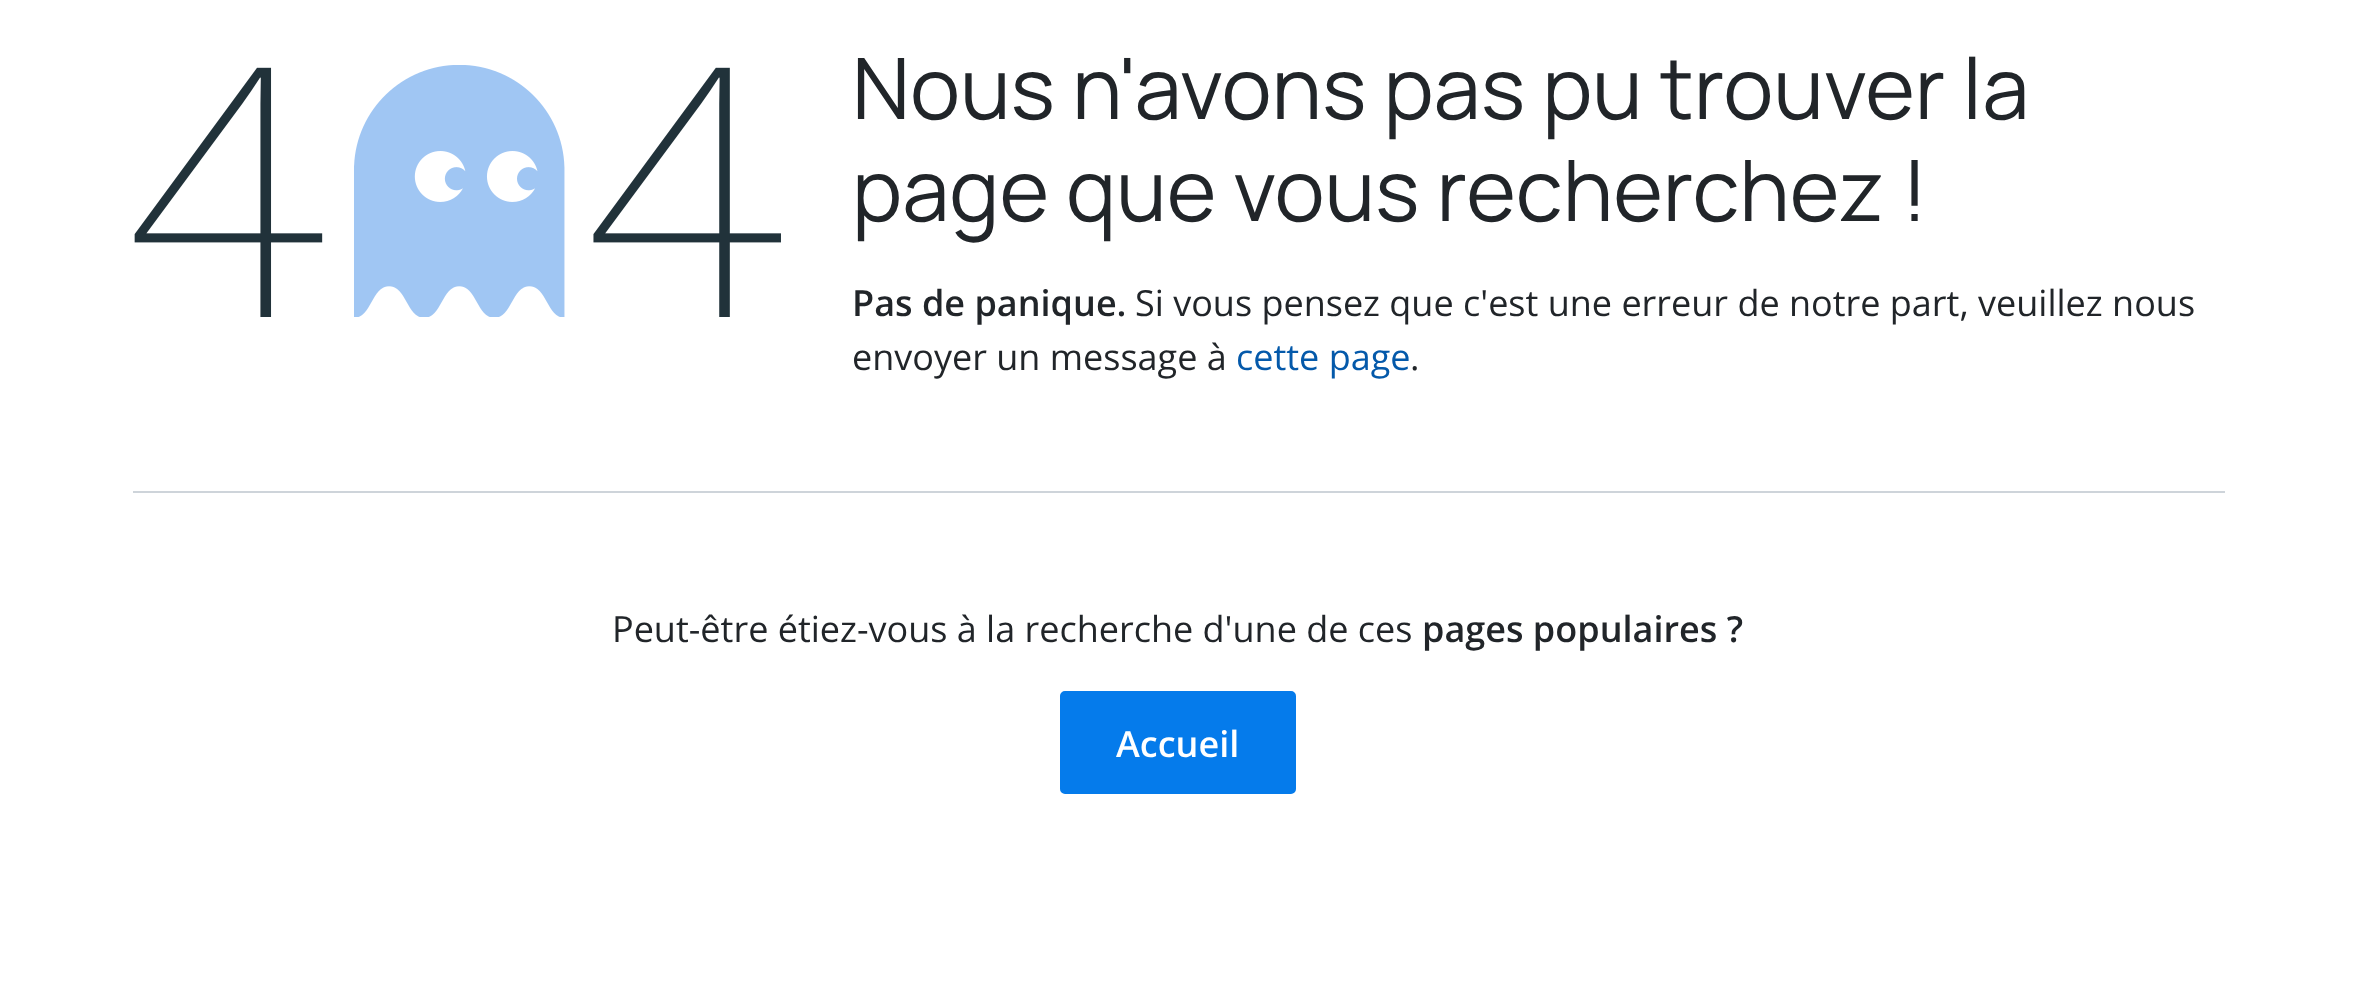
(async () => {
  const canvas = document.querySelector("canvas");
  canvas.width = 2354;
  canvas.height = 995;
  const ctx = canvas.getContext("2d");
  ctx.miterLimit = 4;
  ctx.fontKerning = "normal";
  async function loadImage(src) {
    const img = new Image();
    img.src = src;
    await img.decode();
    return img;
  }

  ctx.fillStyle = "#ffffff";
  ctx.fillRect(0, 0, 2354, 995);
  ctx.drawImage(await loadImage("img/1.png"), 134, 65, 647, 252);
  ctx.fillStyle = "#ced4da";
  ctx.fillRect(133, 491, 2092, 2);
  ctx.fillStyle = "#057beb";
  ctx.beginPath();
  ctx.roundRect(1061, 692, 234, 101, 4);
  ctx.fill();
  ctx.strokeStyle = "#057beb";
  ctx.lineWidth = 2;
  ctx.stroke();
  ctx.font = "84.8px Manrope";
  ctx.fillStyle = "#212529";
  ctx.fillText("Nous n'avons pas pu trouver la", 852, 119);
  ctx.fillText("page que vous recherchez !", 852, 221);
  ctx.font = "600 36px Open Sans";
  ctx.fillText("Pas de panique.", 852, 316);
  ctx.font = "36px Open Sans";
  ctx.fillText("Si vous pensez que c'est une erreur de notre part, veuillez nous", 1135, 316);
  ctx.fillText("envoyer un message à", 852, 370);
  ctx.fillStyle = "#0459aa";
  ctx.fillText("cette page", 1236, 370);
  ctx.fillStyle = "#212529";
  ctx.fillText(".", 1410, 370);
  ctx.fillText("Peut-être étiez-vous à la recherche d'une de ces", 612, 642);
  ctx.font = "600 36px Open Sans";
  ctx.fillText("pages populaires ?", 1422, 642);
  ctx.fillStyle = "#ffffff";
  ctx.fillText("Accueil", 1116, 757);
})();
